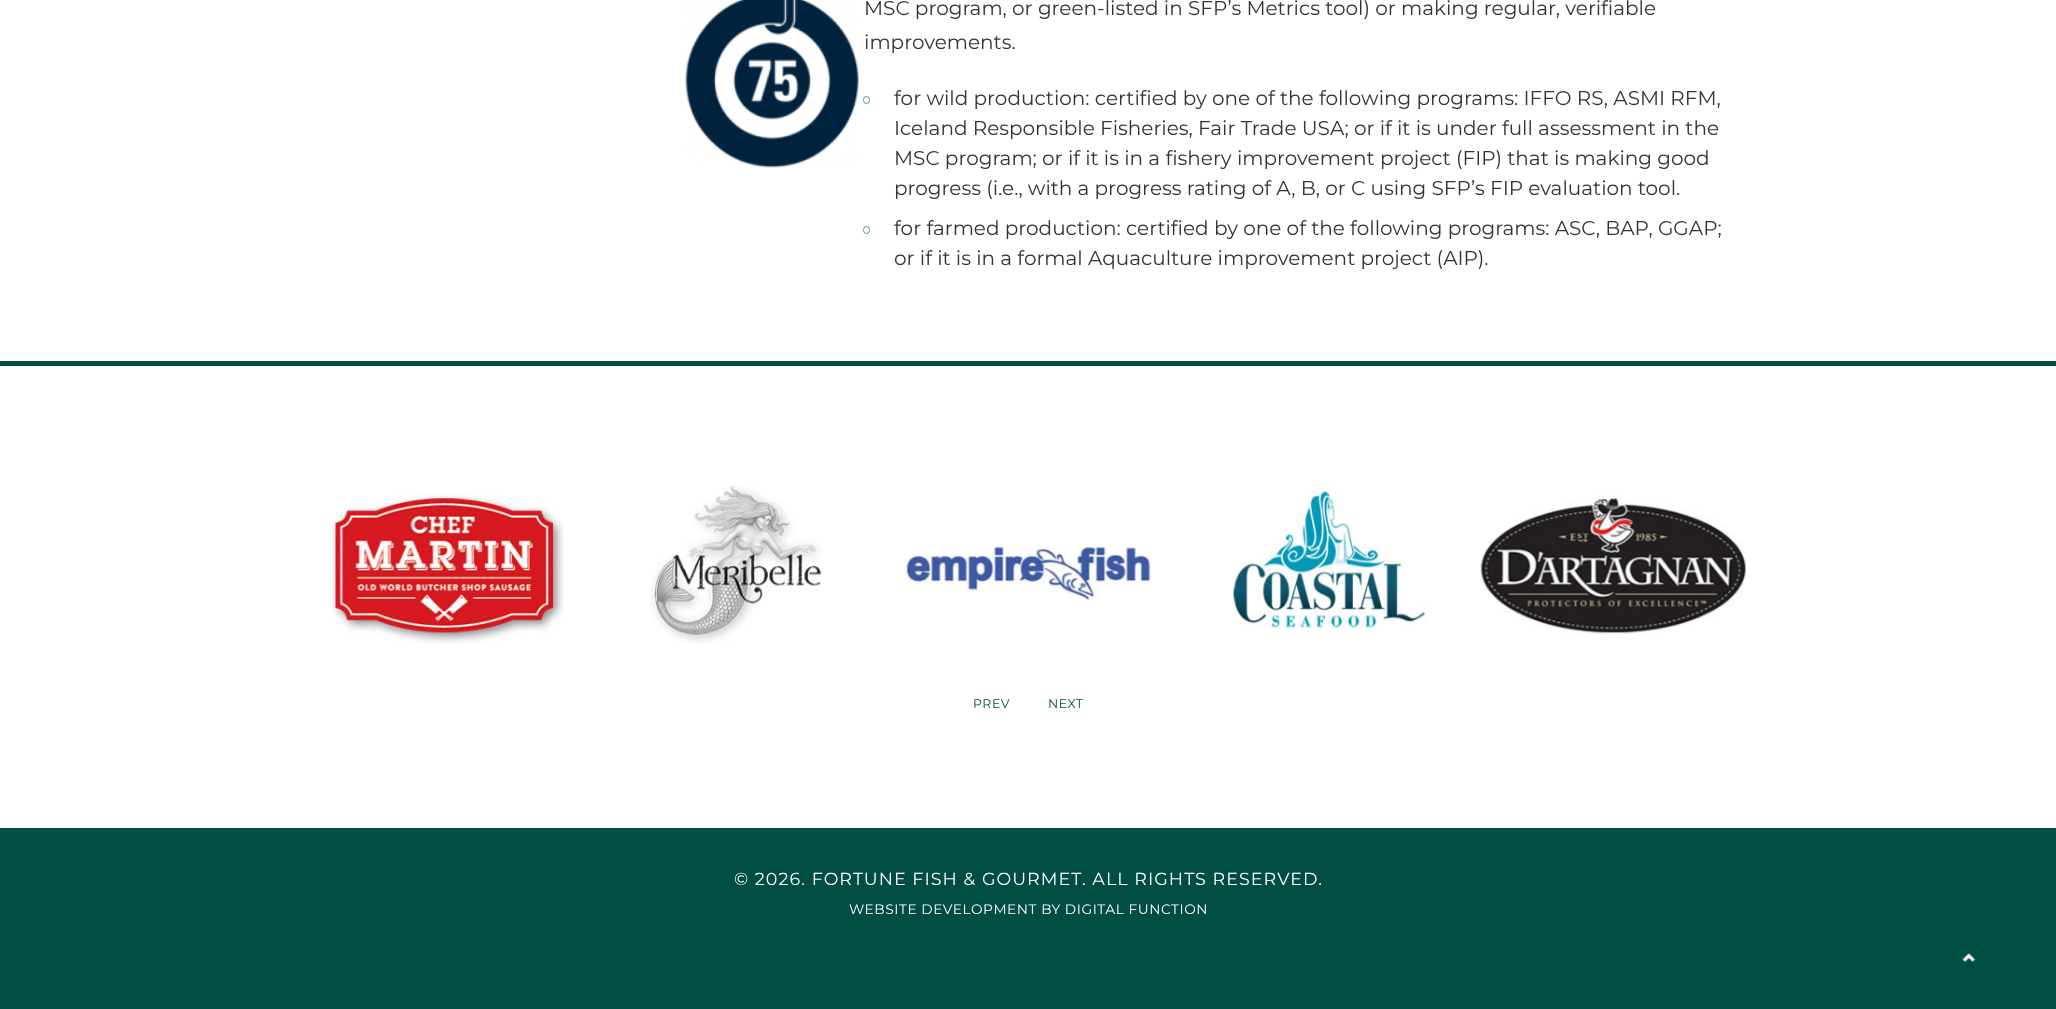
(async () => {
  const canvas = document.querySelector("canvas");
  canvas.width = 2056;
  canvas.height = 1009;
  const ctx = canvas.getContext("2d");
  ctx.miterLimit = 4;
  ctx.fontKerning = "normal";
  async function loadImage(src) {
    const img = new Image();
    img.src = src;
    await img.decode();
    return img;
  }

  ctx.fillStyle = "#ffffff";
  ctx.fillRect(0, 0, 2056, 1009);
  ctx.drawImage(await loadImage("img/1.png"), 684, 0, 175, 168);
  ctx.beginPath();
  ctx.roundRect(863.5, 96.5, 6, 7, 3);
  ctx.strokeStyle = "#66948d";
  ctx.stroke();
  ctx.beginPath();
  ctx.roundRect(863.5, 226.5, 6, 7, 3);
  ctx.stroke();
  ctx.fillStyle = "#004d41";
  ctx.fillRect(0, 361, 2056, 5);
  ctx.drawImage(await loadImage("img/2.png"), 331, 494, 233, 150);
  ctx.drawImage(await loadImage("img/3.png"), 650, 485, 174, 159);
  ctx.drawImage(await loadImage("img/4.png"), 904, 546, 247, 55);
  ctx.drawImage(await loadImage("img/5.png"), 1233, 487, 195, 142);
  ctx.drawImage(await loadImage("img/6.png"), 1480, 495, 266, 140);
  ctx.fillRect(0, 828, 2056, 181);
  ctx.drawImage(await loadImage("img/7.png"), 1962, 953, 14, 9);
  ctx.font = "20px Montserrat";
  ctx.fillStyle = "#333333";
  for (const [text, x, y] of [
    ["MSC program, or green-listed in SFP’s Metrics tool) or making regular, verifiable", 864, 15],
    ["improvements.", 864, 49],
    ["for wild production: certified by one of the following programs: IFFO RS, ASMI RFM,", 894, 105],
    ["Iceland Responsible Fisheries, Fair Trade USA; or if it is under full assessment in the", 894, 135],
    ["MSC program; or if it is in a fishery improvement project (FIP) that is making good", 894, 165],
    ["progress (i.e., with a progress rating of A, B, or C using SFP’s FIP evaluation tool.", 894, 195],
    ["for farmed production: certified by one of the following programs: ASC, BAP, GGAP;", 894, 235],
    ["or if it is in a formal Aquaculture improvement project (AIP).", 894, 265],
  ]) {
    ctx.fillText(text, x, y);
  }
  ctx.letterSpacing = "0.5px";
  ctx.font = "12.5px Montserrat";
  ctx.fillStyle = "#004d41";
  ctx.fillText("PREV", 973, 708);
  ctx.fillText("NEXT", 1048, 708);
  ctx.letterSpacing = "1.05px";
  ctx.font = "17.5px Montserrat";
  ctx.fillStyle = "#ffffff";
  ctx.fillText("© 2026. FORTUNE FISH & GOURMET. ALL RIGHTS RESERVED.", 734, 885);
  ctx.letterSpacing = "0.55px";
  ctx.font = "13.75px Montserrat";
  ctx.fillText("WEBSITE DEVELOPMENT BY DIGITAL FUNCTION", 849, 914);
})();
